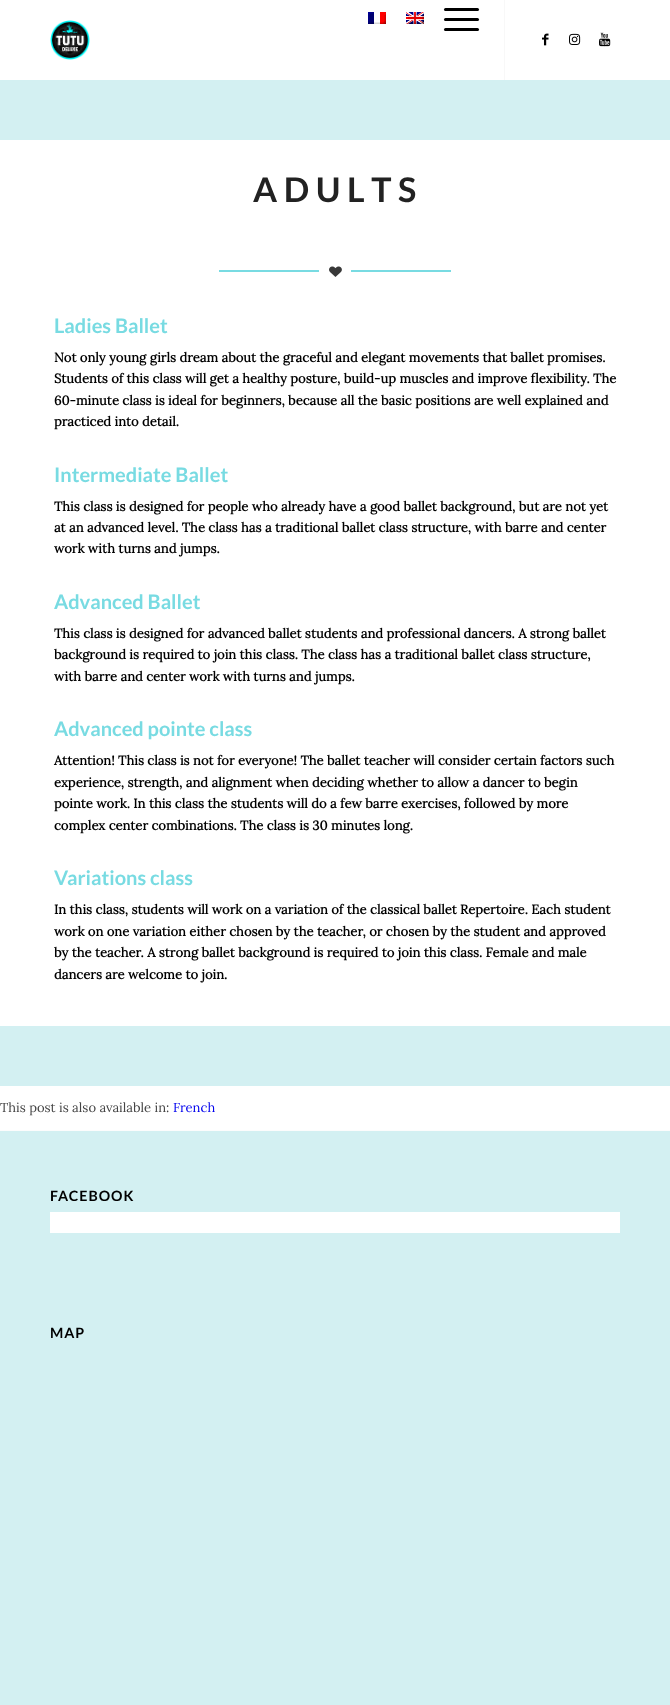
(async () => {
  const canvas = document.querySelector("canvas");
  canvas.width = 670;
  canvas.height = 1705;
  const ctx = canvas.getContext("2d");
  ctx.miterLimit = 4;
  ctx.fontKerning = "normal";
  async function loadImage(src) {
    const img = new Image();
    img.src = src;
    await img.decode();
    return img;
  }

  ctx.fillStyle = "#ffffff";
  ctx.fillRect(0, 0, 670, 1705);
  ctx.drawImage(await loadImage("img/1.png"), 50, 20, 40, 40);
  ctx.fillStyle = "#f8f8f8";
  ctx.fillRect(504, 0, 1, 80);
  ctx.drawImage(await loadImage("img/2.png"), 368, 12, 18, 12);
  ctx.drawImage(await loadImage("img/3.png"), 406, 12, 18, 12);
  ctx.fillStyle = "#000000";
  ctx.beginPath();
  ctx.roundRect(444, 18, 35, 3, 1.5);
  ctx.fill();
  ctx.beginPath();
  ctx.roundRect(444, 8, 35, 3, 1.5);
  ctx.fill();
  ctx.beginPath();
  ctx.roundRect(444, 28, 35, 3, 1.5);
  ctx.fill();
  ctx.drawImage(await loadImage("img/4.png"), 542, 33, 7, 13);
  ctx.drawImage(await loadImage("img/5.png"), 569, 33, 12, 12);
  ctx.drawImage(await loadImage("img/6.png"), 599, 32, 12, 15);
  ctx.fillStyle = "#d3f0f2";
  ctx.fillRect(0, 80, 670, 60);
  ctx.fillStyle = "#78dbe2";
  ctx.fillRect(219, 270, 100, 2);
  ctx.drawImage(await loadImage("img/7.png"), 329, 266, 13, 11);
  for (const [x, y, w, h, color] of [
    [351, 270, 100, 2, "#78dbe2"],
    [0, 1026, 670, 60, "#d3f0f2"],
    [0, 1131, 670, 574, "#d3f0f2"],
    [0, 1130, 670, 1, "#fcfcfc"],
    [50, 1212, 570, 21, "#ffffff"],
  ]) {
    ctx.fillStyle = color;
    ctx.fillRect(x, y, w, h);
  }
  ctx.font = "bold 34px Lato";
  ctx.fillStyle = "#222222";
  ctx.fillText("A D U L T S", 253, 202);
  ctx.font = "bold 20px Lato";
  ctx.fillStyle = "#78dbe2";
  ctx.fillText("Ladies Ballet", 54, 333);
  ctx.font = "bold 13px Lora";
  ctx.fillStyle = "#000000";
  for (const [text, x, y] of [
    ["Not only young girls dream about the graceful and elegant movements that ballet promises.", 54, 362],
    ["Students of this class will get a healthy posture, build-up muscles and improve flexibility. The", 54, 383],
    ["60-minute class is ideal for beginners, because all the basic positions are well explained and", 54, 405],
    ["practiced into detail.", 54, 426],
  ]) {
    ctx.fillText(text, x, y);
  }
  ctx.font = "bold 20px Lato";
  ctx.fillStyle = "#78dbe2";
  ctx.fillText("Intermediate Ballet", 54, 482);
  ctx.font = "bold 13px Lora";
  ctx.fillStyle = "#000000";
  for (const [text, x, y] of [
    ["This class is designed for people who already have a good ballet background, but are not yet", 54, 511],
    ["at an advanced level. The class has a traditional ballet class structure, with barre and center", 54, 532],
    ["work with turns and jumps.", 54, 553],
  ]) {
    ctx.fillText(text, x, y);
  }
  ctx.font = "bold 20px Lato";
  ctx.fillStyle = "#78dbe2";
  ctx.fillText("Advanced Ballet", 54, 609);
  ctx.font = "bold 13px Lora";
  ctx.fillStyle = "#000000";
  for (const [text, x, y] of [
    ["This class is designed for advanced ballet students and professional dancers. A strong ballet", 54, 638],
    ["background is required to join this class. The class has a traditional ballet class structure,", 54, 659],
    ["with barre and center work with turns and jumps.", 54, 681],
  ]) {
    ctx.fillText(text, x, y);
  }
  ctx.font = "bold 20px Lato";
  ctx.fillStyle = "#78dbe2";
  ctx.fillText("Advanced pointe class", 54, 736);
  ctx.font = "bold 13px Lora";
  ctx.fillStyle = "#000000";
  for (const [text, x, y] of [
    ["Attention! This class is not for everyone! The ballet teacher will consider certain factors such", 54, 765],
    ["experience, strength, and alignment when deciding whether to allow a dancer to begin", 54, 787],
    ["pointe work. In this class the students will do a few barre exercises, followed by more", 54, 808],
    ["complex center combinations. The class is 30 minutes long.", 54, 830],
  ]) {
    ctx.fillText(text, x, y);
  }
  ctx.font = "bold 20px Lato";
  ctx.fillStyle = "#78dbe2";
  ctx.fillText("Variations class", 54, 885);
  ctx.font = "bold 13px Lora";
  ctx.fillStyle = "#000000";
  for (const [text, x, y] of [
    ["In this class, students will work on a variation of the classical ballet Repertoire. Each student", 54, 914],
    ["work on one variation either chosen by the teacher, or chosen by the student and approved", 54, 936],
    ["by the teacher. A strong ballet background is required to join this class. Female and male", 54, 957],
    ["dancers are welcome to join.", 54, 979],
  ]) {
    ctx.fillText(text, x, y);
  }
  ctx.font = "13px Lora";
  ctx.fillStyle = "#444444";
  ctx.fillText("This post is also available in:", 0, 1112);
  ctx.fillStyle = "#0000ee";
  ctx.fillText("French", 173, 1112);
  ctx.letterSpacing = "1px";
  ctx.font = "bold 14.25px Lato";
  ctx.fillStyle = "#000000";
  ctx.fillText("FACEBOOK", 50, 1201);
  ctx.fillText("MAP", 50, 1338);
})();
